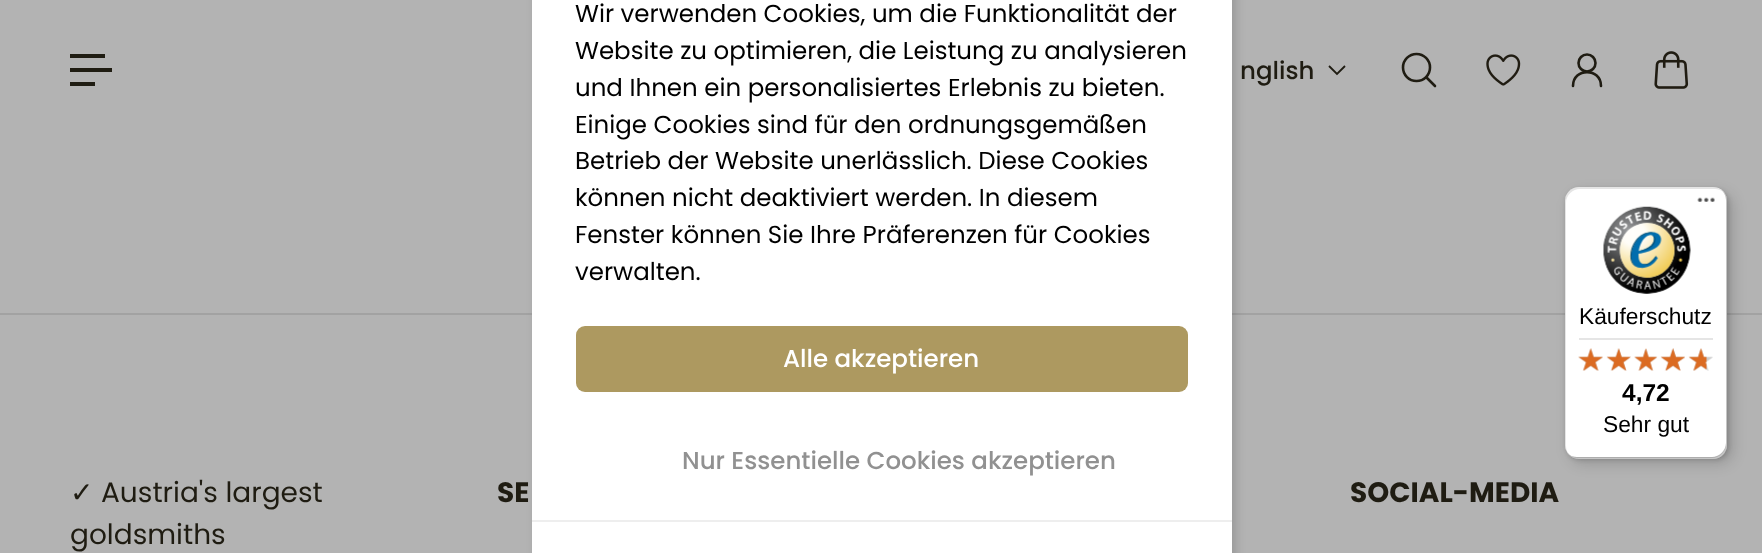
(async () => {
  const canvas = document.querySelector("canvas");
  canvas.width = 1762;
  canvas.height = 553;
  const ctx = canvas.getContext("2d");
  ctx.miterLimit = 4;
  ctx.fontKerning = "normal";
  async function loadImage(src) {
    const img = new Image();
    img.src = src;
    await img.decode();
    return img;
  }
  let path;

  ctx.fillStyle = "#b3b3b3";
  ctx.fillRect(0, 0, 1762, 553);
  ctx.fillStyle = "#a2a2a2";
  ctx.fillRect(0, 313, 1762, 2);
  ctx.fillStyle = "rgba(0, 0, 0, 0.15)";
  ctx.filter = "blur(5px)";
  ctx.beginPath();
  ctx.roundRect(536, -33, 700, 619, 18);
  ctx.fill();
  ctx.filter = "none";
  ctx.fillStyle = "#ffffff";
  ctx.fillRect(532, 0, 700, 553);
  ctx.fillStyle = "#ad9960";
  ctx.beginPath();
  ctx.roundRect(576, 326, 612, 66, 9);
  ctx.fill();
  for (const [x, y, w, h, color] of [
    [532, 520, 700, 2, "#eeeeee"],
    [70, 54, 35, 4, "#1f1c12"],
    [70, 68, 42, 4, "#1f1c12"],
    [70, 82, 25, 4, "#1f1c12"],
  ]) {
    ctx.fillStyle = color;
    ctx.fillRect(x, y, w, h);
  }
  path = new Path2D("M1345 66L1337 74L1329 66");
  ctx.strokeStyle = "#1f1c12";
  ctx.lineWidth = 1.8;
  ctx.stroke(path);
  ctx.beginPath();
  ctx.arc(1416.5, 67.5, 13.5, 0, Math.PI * 2);
  ctx.lineWidth = 2.6;
  ctx.stroke();
  path = new Path2D("M1426.5 77.5L1435 86");
  ctx.lineCap = "round";
  ctx.lineJoin = "round";
  ctx.stroke(path);
  ctx.drawImage(await loadImage("img/1.png"), 1486, 54, 35, 32);
  ctx.beginPath();
  ctx.arc(1587, 63, 8.5, 0, Math.PI * 2);
  ctx.stroke();
  path = new Path2D("M1601 86C1601 67.5 1573 67.5 1573 86");
  ctx.stroke(path);
  ctx.drawImage(await loadImage("img/2.png"), 1654, 51, 35, 38);
  ctx.fillStyle = "rgba(0, 0, 0, 0.15)";
  ctx.filter = "blur(7px)";
  ctx.beginPath();
  ctx.roundRect(1570, 193, 163, 271, 14);
  ctx.fill();
  ctx.filter = "none";
  ctx.filter = "blur(2px)";
  ctx.beginPath();
  ctx.roundRect(1566, 189, 163, 271, 14);
  ctx.fill();
  ctx.filter = "none";
  ctx.fillStyle = "#ffffff";
  ctx.beginPath();
  ctx.roundRect(1565, 187, 162, 272, 14);
  ctx.fill();
  ctx.fillStyle = "rgba(0, 0, 0, 0.1)";
  path = new Path2D("M1580 189H1715C1718 189 1721 190 1723 192C1721 189 1717 187 1713 187H1579C1571 187 1565 193 1565 201V445C1565 450 1567 454 1571 456C1568 454 1566 450 1566 446V203C1566 195 1573 189 1580 189Z");
  ctx.fill(path);
  ctx.fillStyle = "rgba(0, 0, 0, 0.2)";
  path = new Path2D("M1568 453C1570 457 1574 459 1579 459H1713C1721 459 1727 453 1727 445V201C1727 196 1725 192 1721 190C1724 192 1726 196 1726 200V443C1726 450 1719 457 1712 457H1577C1573 457 1570 456 1568 453Z");
  ctx.fill(path);
  ctx.fillStyle = "rgba(50, 50, 50, 0.2)";
  path = new Path2D("M1568 453C1570 457 1574 459 1579 459H1713C1721 459 1727 453 1727 445V201C1727 197 1726 194 1723 192C1725 194 1726 197 1726 200V443C1726 451 1720 457 1712 457H1577C1574 457 1570 456 1568 453Z");
  ctx.fill(path);
  ctx.fillStyle = "rgba(255, 255, 255, 0.3)";
  path = new Path2D("M1568 453C1570 457 1574 459 1579 459H1713C1721 459 1727 453 1727 445V201C1727 196 1725 192 1722 190C1724 193 1726 196 1726 200V444C1726 451 1720 458 1712 458H1578C1574 458 1570 456 1568 453Z");
  ctx.fill(path);
  ctx.drawImage(await loadImage("img/3.png"), 1697, 197, 18, 5);
  ctx.drawImage(await loadImage("img/4.png"), 1603, 206, 88, 88);
  ctx.fillStyle = "#e5e5e5";
  ctx.fillRect(1579, 338, 134, 2);
  ctx.drawImage(await loadImage("img/5.png"), 1578, 348, 25, 23);
  ctx.drawImage(await loadImage("img/6.png"), 1607, 348, 24, 23);
  ctx.drawImage(await loadImage("img/7.png"), 1634, 349, 23, 22);
  ctx.drawImage(await loadImage("img/8.png"), 1661, 348, 24, 23);
  ctx.drawImage(await loadImage("img/9.png"), 1689, 348, 24, 23);
  ctx.drawImage(await loadImage("img/10.png"), 1578, 348, 25, 23);
  ctx.drawImage(await loadImage("img/11.png"), 1606, 348, 25, 23);
  ctx.drawImage(await loadImage("img/12.png"), 1634, 348, 24, 23);
  ctx.drawImage(await loadImage("img/13.png"), 1660, 348, 25, 23);
  ctx.drawImage(await loadImage("img/14.png"), 1688, 348, 19, 23);
  ctx.font = "24.5px Poppins";
  ctx.fillStyle = "#000000";
  for (const [text, x, y] of [
    ["Wir verwenden Cookies, um die Funktionalität der", 575, 22],
    ["Website zu optimieren, die Leistung zu analysieren", 575, 59],
    ["und Ihnen ein personalisiertes Erlebnis zu bieten.", 575, 96],
    ["Einige Cookies sind für den ordnungsgemäßen", 575, 133],
    ["Betrieb der Website unerlässlich. Diese Cookies", 575, 169],
    ["können nicht deaktiviert werden. In diesem", 575, 206],
    ["Fenster können Sie Ihre Präferenzen für Cookies", 575, 243],
    ["verwalten.", 575, 280],
  ]) {
    ctx.fillText(text, x, y);
  }
  ctx.font = "500 24.5px Poppins";
  ctx.fillStyle = "#ffffff";
  ctx.fillText("Alle akzeptieren", 783, 367);
  ctx.fillStyle = "#919191";
  ctx.fillText("Nur Essentielle Cookies akzeptieren", 682, 469);
  ctx.fillStyle = "#1f1c12";
  ctx.fillText("nglish", 1240, 79);
  ctx.font = "22.75px Liberation Sans";
  ctx.fillStyle = "#000000";
  ctx.fillText("Käuferschutz", 1579, 324);
  ctx.font = "bold 24.5px Liberation Sans";
  ctx.fillText("4,72", 1622, 401);
  ctx.font = "22.75px Liberation Sans";
  ctx.fillText("Sehr gut", 1603, 432);
  ctx.font = "28px DejaVu Sans";
  ctx.fillStyle = "#1f1c12";
  ctx.fillText("✓", 70, 502);
  ctx.font = "28px Poppins";
  ctx.fillText("Austria's largest", 101, 502);
  ctx.fillText("goldsmiths", 70, 544);
  ctx.font = "bold 28px Poppins";
  ctx.fillText("SE", 497, 502);
  ctx.fillText("SOCIAL-MEDIA", 1350, 502);
})();
